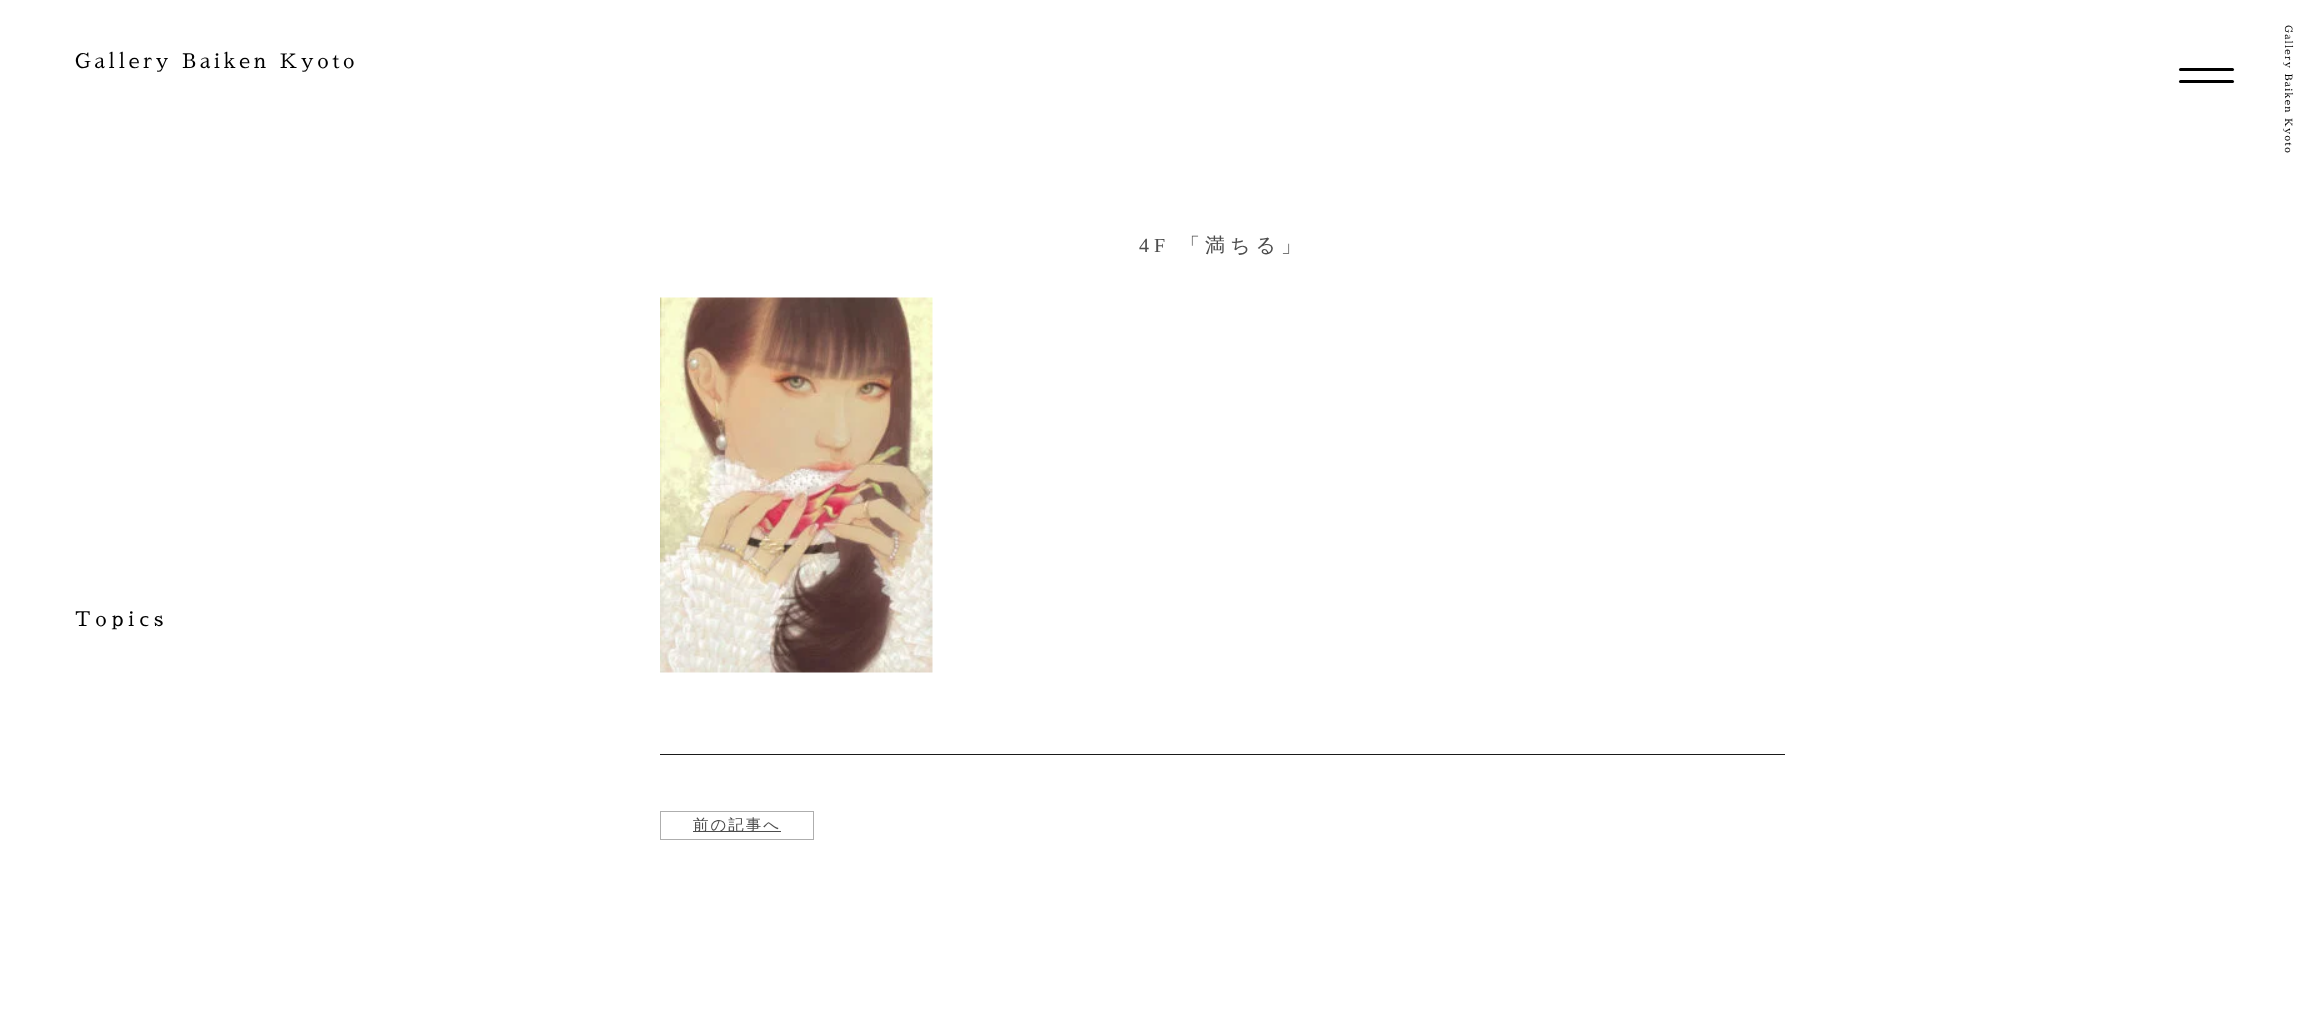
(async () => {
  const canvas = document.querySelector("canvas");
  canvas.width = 2321;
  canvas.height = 1023;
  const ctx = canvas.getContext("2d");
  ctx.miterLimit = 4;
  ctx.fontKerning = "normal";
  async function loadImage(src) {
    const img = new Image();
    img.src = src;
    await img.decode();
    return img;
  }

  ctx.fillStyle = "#ffffff";
  ctx.fillRect(0, 0, 2321, 1023);
  ctx.fillStyle = "#000000";
  ctx.beginPath();
  ctx.roundRect(2179, 68, 55, 3, 1.5);
  ctx.fill();
  ctx.beginPath();
  ctx.roundRect(2179, 80, 55, 3, 1.5);
  ctx.fill();
  ctx.fillStyle = "#1a1a1a";
  ctx.fillRect(660, 754, 1125, 1);
  ctx.drawImage(await loadImage("img/1.png"), 660, 297, 273, 376);
  ctx.strokeStyle = "#aeaeae";
  ctx.strokeRect(660.5, 811.5, 153, 28);
  ctx.fillStyle = "#4d4d4d";
  ctx.fillRect(693, 831, 88, 1);
  ctx.letterSpacing = "3.75px";
  ctx.font = "20px Sawarabi Mincho";
  ctx.fillStyle = "#000000";
  ctx.fillText("Gallery Baiken Kyoto", 75, 68);
  ctx.letterSpacing = "1.25px";
  ctx.font = "10px Sawarabi Mincho";
  ctx.save();
  ctx.translate(2285, 25);
  ctx.rotate(90 * Math.PI / 180);
  ctx.fillText("Gallery Baiken Kyoto", 0, 0);
  ctx.restore();
  ctx.letterSpacing = "5px";
  ctx.font = "20px Sawarabi Mincho";
  ctx.fillText("Topics", 75, 626);
  ctx.font = "20px Liberation Serif";
  ctx.fillStyle = "#4d4d4d";
  ctx.fillText("4F", 1139, 252);
  ctx.font = "500 20px WenQuanYi Zen Hei";
  ctx.fillText("「満ちる」", 1180, 252);
  ctx.letterSpacing = "2px";
  ctx.font = "500 15.5px WenQuanYi Zen Hei";
  ctx.fillText("前の記事へ", 693, 830);
})();
